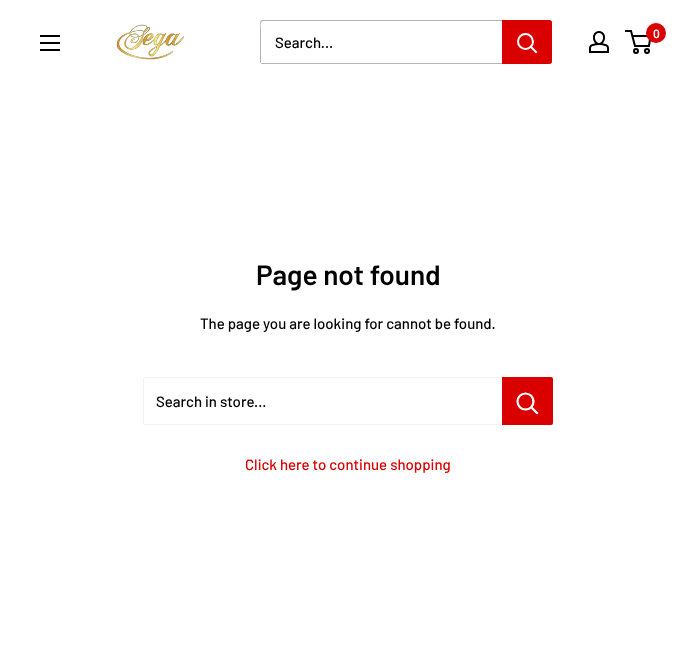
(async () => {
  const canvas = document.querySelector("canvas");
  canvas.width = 696;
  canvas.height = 646;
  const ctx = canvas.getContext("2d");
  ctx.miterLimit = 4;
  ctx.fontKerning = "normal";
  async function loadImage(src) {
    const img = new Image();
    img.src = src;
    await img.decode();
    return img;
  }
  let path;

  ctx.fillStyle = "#ffffff";
  ctx.fillRect(0, 0, 696, 646);
  ctx.drawImage(await loadImage("img/1.png"), 116, 24, 69, 36);
  ctx.drawImage(await loadImage("img/2.png"), 589, 31, 20, 22);
  ctx.beginPath();
  ctx.arc(636, 51, 2, 0, Math.PI * 2);
  ctx.strokeStyle = "#000000";
  ctx.lineWidth = 2;
  ctx.stroke();
  ctx.beginPath();
  ctx.arc(647, 51, 2, 0, Math.PI * 2);
  ctx.stroke();
  path = new Path2D("M632.5 36H650.5L649 46H635L631 31H625");
  ctx.stroke(path);
  ctx.fillStyle = "#db0000";
  ctx.beginPath();
  ctx.arc(656, 33, 10, 0, Math.PI * 2);
  ctx.fill();
  ctx.drawImage(await loadImage("img/3.png"), 40, 35, 20, 16);
  ctx.fillStyle = "#b3b3b3";
  path = new Path2D("M261 63C261 64 262 64 263 64H549C551 64 552 63 552 61V23C552 22 552 21 551 21V54C551 56 553 63 548 63Z");
  ctx.fill(path);
  path = new Path2D("M264 21H551C551 20 550 20 549 20H263C261 20 260 21 260 23V61C260 62 260 63 261 63V30C261 28 259 21 264 21Z");
  ctx.fill(path);
  ctx.fillStyle = "#db0000";
  ctx.beginPath();
  ctx.roundRect(502, 20, 50, 44, [0, 3, 3, 0]);
  ctx.fill();
  path = new Path2D("M536 52L531 47");
  ctx.strokeStyle = "#ffffff";
  ctx.lineCap = "square";
  ctx.stroke(path);
  ctx.beginPath();
  ctx.arc(525.5, 41.5, 7.5, 0, Math.PI * 2);
  ctx.stroke();
  for (const [x, y, w, h, color] of [
    [144, 377, 358, 1, "#f2f2f2"],
    [144, 424, 358, 1, "#f2f2f2"],
    [143, 378, 1, 46, "#f2f2f2"],
  ]) {
    ctx.fillStyle = color;
    ctx.fillRect(x, y, w, h);
  }
  ctx.fillStyle = "#db0000";
  ctx.beginPath();
  ctx.roundRect(502, 377, 51, 48, [0, 2, 2, 0]);
  ctx.fill();
  path = new Path2D("M537 413L531.5 407.5");
  ctx.lineWidth = 2.2;
  ctx.stroke(path);
  ctx.beginPath();
  ctx.arc(525.5, 401.5, 8, 0, Math.PI * 2);
  ctx.stroke();
  ctx.font = "600 12px Barlow";
  ctx.fillStyle = "#ffffff";
  ctx.fillText("0", 653, 38);
  ctx.font = "500 15px Barlow";
  ctx.fillStyle = "#000000";
  ctx.fillText("Search...", 275, 48);
  ctx.font = "600 28px Barlow";
  ctx.fillText("Page not found", 256, 285);
  ctx.font = "500 15px Barlow";
  ctx.fillText("The page you are looking for cannot be found.", 200, 329);
  ctx.fillText("Search in store...", 156, 407);
  ctx.fillStyle = "#db0000";
  ctx.fillText("Click here to continue shopping", 245, 470);
})();
